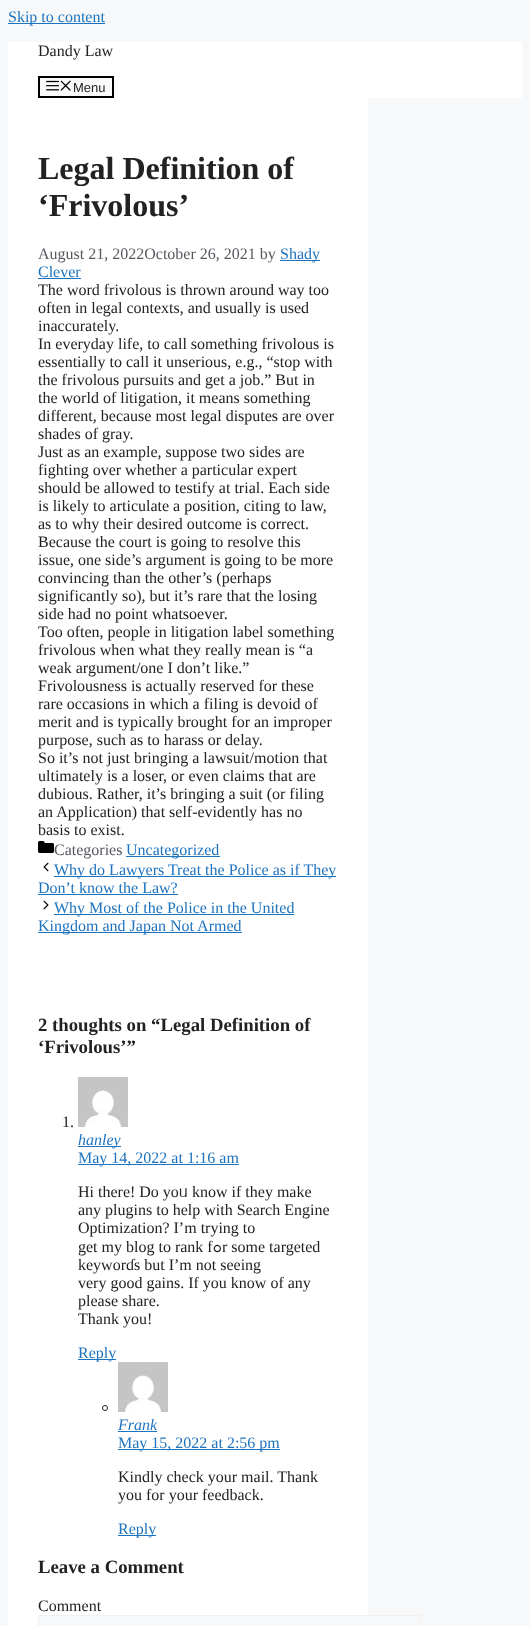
(async () => {
  const canvas = document.querySelector("canvas");
  canvas.width = 530;
  canvas.height = 1626;
  const ctx = canvas.getContext("2d");
  ctx.miterLimit = 4;
  ctx.fontKerning = "normal";
  async function loadImage(src) {
    const img = new Image();
    img.src = src;
    await img.decode();
    return img;
  }

  ctx.fillStyle = "#f7f8f9";
  ctx.fillRect(0, 0, 530, 1626);
  ctx.fillStyle = "#1e73be";
  ctx.fillRect(8, 23, 97, 1);
  ctx.fillStyle = "#ffffff";
  ctx.fillRect(8, 42, 514, 56);
  ctx.fillStyle = "#fafafa";
  ctx.beginPath();
  ctx.rect(39, 77, 74, 20);
  ctx.fill();
  ctx.strokeStyle = "#000000";
  ctx.lineWidth = 2;
  ctx.stroke();
  ctx.drawImage(await loadImage("img/1.png"), 46, 80, 13, 11);
  ctx.drawImage(await loadImage("img/2.png"), 60, 80, 11, 11);
  for (const [x, y, w, h, color] of [
    [8, 98, 360, 1528, "#ffffff"],
    [280, 260, 40, 1, "#1e73be"],
    [38, 278, 43, 1, "#1e73be"],
  ]) {
    ctx.fillStyle = color;
    ctx.fillRect(x, y, w, h);
  }
  ctx.drawImage(await loadImage("img/3.png"), 38, 841, 16, 12);
  ctx.fillRect(126, 856, 94, 1);
  ctx.drawImage(await loadImage("img/4.png"), 43, 862, 6, 10);
  ctx.fillRect(54, 876, 282, 1);
  ctx.fillRect(38, 894, 140, 1);
  ctx.drawImage(await loadImage("img/5.png"), 43, 900, 6, 10);
  ctx.fillRect(54, 914, 240, 1);
  ctx.fillRect(38, 932, 204, 1);
  ctx.drawImage(await loadImage("img/6.png"), 78, 1077, 50, 50);
  for (const [x, y, w, h, color] of [
    [78, 1146, 43, 1, "#1e73be"],
    [78, 1164, 161, 1, "#1e73be"],
    [78, 1359, 38, 1, "#1e73be"],
  ]) {
    ctx.fillStyle = color;
    ctx.fillRect(x, y, w, h);
  }
  ctx.beginPath();
  ctx.arc(105, 1408, 2.5, 0, Math.PI * 2);
  ctx.strokeStyle = "#222222";
  ctx.lineWidth = 1;
  ctx.stroke();
  ctx.drawImage(await loadImage("img/6.png"), 118, 1362, 50, 50);
  for (const [x, y, w, h, color] of [
    [118, 1431, 39, 1, "#1e73be"],
    [118, 1449, 162, 1, "#1e73be"],
    [118, 1535, 38, 1, "#1e73be"],
    [39, 1616, 329, 10, "#f7f8f9"],
  ]) {
    ctx.fillStyle = color;
    ctx.fillRect(x, y, w, h);
  }
  ctx.strokeStyle = "#f0f0f0";
  ctx.strokeRect(38.5, 1615.5, 382, 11);
  ctx.font = "16px Liberation Serif";
  ctx.fillStyle = "#1e73be";
  ctx.fillText("Skip to content", 8, 22);
  ctx.fillStyle = "#222222";
  ctx.fillText("Dandy Law", 38, 56);
  ctx.font = "13px Liberation Sans";
  ctx.fillText("Menu", 73, 92);
  ctx.font = "bold 32px Liberation Serif";
  ctx.fillText("Legal Definition of", 38, 179);
  ctx.fillText("‘Frivolous’", 38, 216);
  ctx.font = "16px Liberation Serif";
  ctx.fillStyle = "#575760";
  ctx.fillText("August 21, 2022October 26, 2021 by", 38, 259);
  ctx.fillStyle = "#1e73be";
  ctx.fillText("Shady", 280, 259);
  ctx.fillText("Clever", 38, 277);
  ctx.fillStyle = "#222222";
  for (const [text, x, y] of [
    ["The word frivolous is thrown around way too", 38, 295],
    ["often in legal contexts, and usually is used", 38, 313],
    ["inaccurately.", 38, 331],
    ["In everyday life, to call something frivolous is", 38, 349],
    ["essentially to call it unserious, e.g., “stop with", 38, 367],
    ["the frivolous pursuits and get a job.” But in", 38, 385],
    ["the world of litigation, it means something", 38, 403],
    ["different, because most legal disputes are over", 38, 421],
    ["shades of gray.", 38, 439],
    ["Just as an example, suppose two sides are", 38, 457],
    ["fighting over whether a particular expert", 38, 475],
    ["should be allowed to testify at trial. Each side", 38, 493],
    ["is likely to articulate a position, citing to law,", 38, 511],
    ["as to why their desired outcome is correct.", 38, 529],
    ["Because the court is going to resolve this", 38, 547],
    ["issue, one side’s argument is going to be more", 38, 565],
    ["convincing than the other’s (perhaps", 38, 583],
    ["significantly so), but it’s rare that the losing", 38, 601],
    ["side had no point whatsoever.", 38, 619],
    ["Too often, people in litigation label something", 38, 637],
    ["frivolous when what they really mean is “a", 38, 655],
    ["weak argument/one I don’t like.”", 38, 673],
    ["Frivolousness is actually reserved for these", 38, 691],
    ["rare occasions in which a filing is devoid of", 38, 709],
    ["merit and is typically brought for an improper", 38, 727],
    ["purpose, such as to harass or delay.", 38, 745],
    ["So it’s not just bringing a lawsuit/motion that", 38, 763],
    ["ultimately is a loser, or even claims that are", 38, 781],
    ["dubious. Rather, it’s bringing a suit (or filing", 38, 799],
    ["an Application) that self-evidently has no", 38, 817],
    ["basis to exist.", 38, 835],
  ]) {
    ctx.fillText(text, x, y);
  }
  ctx.fillStyle = "#575760";
  ctx.fillText("Categories", 54, 855);
  ctx.fillStyle = "#1e73be";
  for (const [text, x, y] of [
    ["Uncategorized", 126, 855],
    ["Why do Lawyers Treat the Police as if They", 54, 875],
    ["Don’t know the Law?", 38, 893],
    ["Why Most of the Police in the United", 54, 913],
    ["Kingdom and Japan Not Armed", 38, 931],
  ]) {
    ctx.fillText(text, x, y);
  }
  ctx.font = "bold 18.75px Liberation Serif";
  ctx.fillStyle = "#222222";
  ctx.fillText("2 thoughts on “Legal Definition of", 38, 1031);
  ctx.fillText("‘Frivolous’”", 38, 1053);
  ctx.font = "16px Liberation Serif";
  ctx.fillText("1.", 62, 1127);
  ctx.font = "italic 16px Liberation Serif";
  ctx.fillStyle = "#1e73be";
  ctx.fillText("hanley", 78, 1145);
  ctx.font = "16px Liberation Serif";
  ctx.fillText("May 14, 2022 at 1:16 am", 78, 1163);
  ctx.fillStyle = "#222222";
  ctx.fillText("Hi there! Do yo", 78, 1197);
  ctx.font = "16px FreeSerif";
  ctx.fillText("ᥙ", 179, 1197);
  ctx.font = "16px Liberation Serif";
  for (const [text, x, y] of [
    ["know іf they make", 192, 1197],
    ["any plugins to help with Search Engine", 78, 1215],
    ["Optimization? I’m trying to", 78, 1233],
    ["get my blog to rаnk f", 78, 1252],
  ]) {
    ctx.fillText(text, x, y);
  }
  ctx.direction = "rtl";
  ctx.font = "16px DejaVu Sans";
  ctx.fillText("ߋ", 222, 1252);
  ctx.direction = "ltr";
  ctx.font = "16px Liberation Serif";
  for (const [text, x, y] of [
    ["r some targetеd", 222, 1252],
    ["keyworɗs but I’m not seeing", 78, 1270],
    ["very good gains. Ӏf you know of any", 78, 1288],
    ["please share.", 78, 1306],
    ["Thank you!", 78, 1324],
  ]) {
    ctx.fillText(text, x, y);
  }
  ctx.fillStyle = "#1e73be";
  ctx.fillText("Reply", 78, 1358);
  ctx.font = "italic 16px Liberation Serif";
  ctx.fillText("Frank", 118, 1430);
  ctx.font = "16px Liberation Serif";
  ctx.fillText("May 15, 2022 at 2:56 pm", 118, 1448);
  ctx.fillStyle = "#222222";
  ctx.fillText("Kindly check your mail. Thank", 118, 1482);
  ctx.fillText("you for your feedback.", 118, 1500);
  ctx.fillStyle = "#1e73be";
  ctx.fillText("Reply", 118, 1534);
  ctx.font = "bold 18.75px Liberation Serif";
  ctx.fillStyle = "#222222";
  ctx.fillText("Leave a Comment", 38, 1573);
  ctx.font = "16px Liberation Serif";
  ctx.fillText("Comment", 38, 1611);
})();
